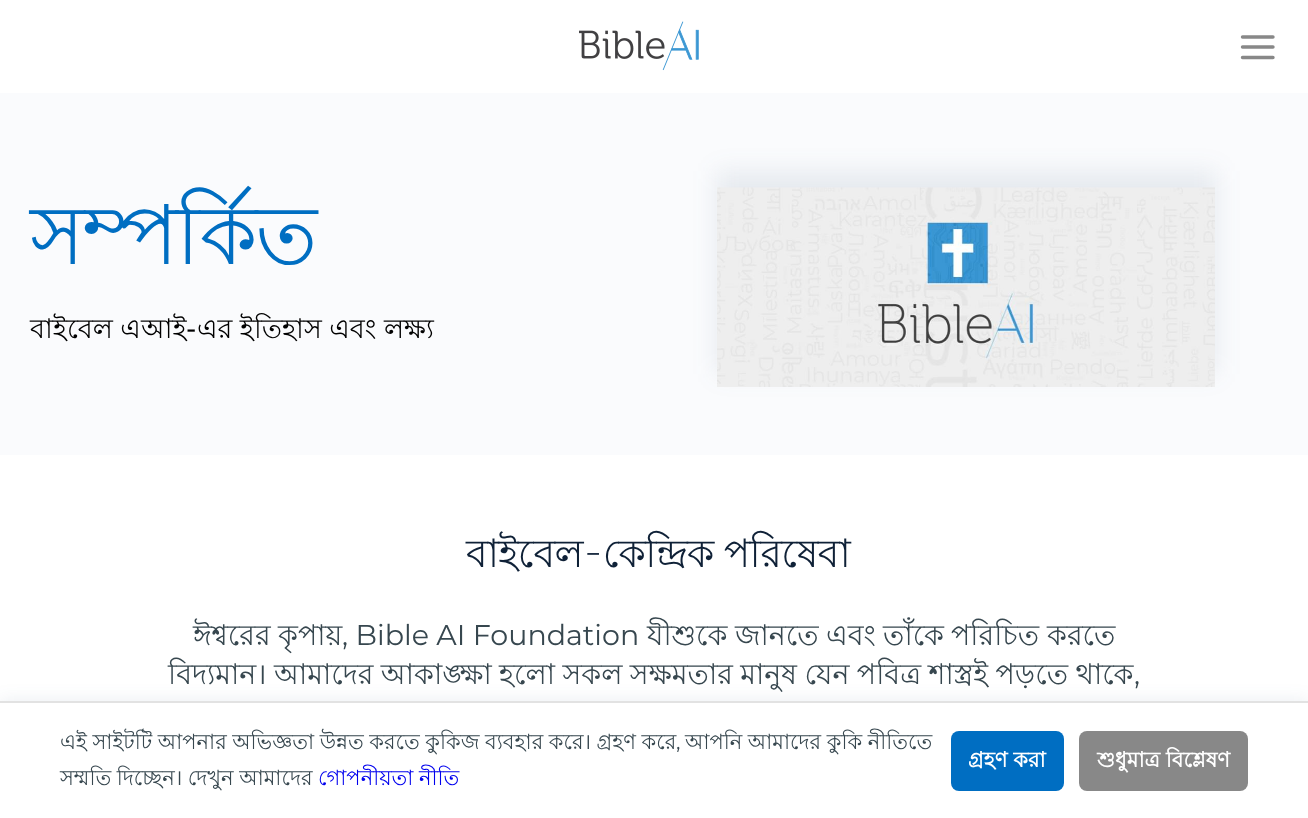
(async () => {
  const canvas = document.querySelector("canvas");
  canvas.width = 1308;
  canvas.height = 818;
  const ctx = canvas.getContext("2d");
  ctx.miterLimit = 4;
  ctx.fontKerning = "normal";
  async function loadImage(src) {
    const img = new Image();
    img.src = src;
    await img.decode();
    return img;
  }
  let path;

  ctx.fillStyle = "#ffffff";
  ctx.fillRect(0, 0, 1308, 818);
  ctx.drawImage(await loadImage("img/1.png"), 579, 21, 120, 50);
  path = new Path2D("M1242.5 47H1273M1242.5 37H1273M1242.5 57.5H1273");
  ctx.strokeStyle = "#888888";
  ctx.lineWidth = 3.4;
  ctx.lineCap = "round";
  ctx.lineJoin = "round";
  ctx.stroke(path);
  ctx.fillStyle = "#fafbfd";
  ctx.fillRect(0, 93, 1308, 362);
  ctx.fillStyle = "rgba(56, 86, 122, 0.1)";
  ctx.filter = "blur(12px)";
  ctx.beginPath();
  ctx.rect(716, 171, 501, 203);
  ctx.fill();
  ctx.filter = "none";
  ctx.drawImage(await loadImage("img/2.png"), 717, 187, 498, 200);
  ctx.fillStyle = "rgba(38, 78, 118, 0.1)";
  ctx.filter = "blur(9px)";
  ctx.beginPath();
  ctx.rect(0, 701, 1308, 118);
  ctx.fill();
  ctx.filter = "none";
  ctx.fillStyle = "#ffffff";
  ctx.fillRect(0, 703, 1308, 115);
  ctx.fillStyle = "#e2e2e2";
  ctx.fillRect(0, 701, 1308, 2);
  ctx.fillStyle = "#006ec2";
  ctx.beginPath();
  ctx.roundRect(951, 731, 113, 60, 8);
  ctx.fill();
  ctx.fillStyle = "#888888";
  ctx.beginPath();
  ctx.roundRect(1079, 731, 169, 60, 8);
  ctx.fill();
  ctx.letterSpacing = "-2px";
  ctx.font = "82.5px Lohit Bengali";
  ctx.fillStyle = "#006ec2";
  ctx.fillText("সম্পর্কিত", 30, 264);
  ctx.letterSpacing = "0px";
  ctx.font = "27px Lohit Bengali";
  ctx.fillStyle = "#000000";
  ctx.fillText("বাইবেল এআই", 30, 338);
  ctx.font = "500 27px Montserrat";
  ctx.fillText("-", 186, 338);
  ctx.font = "27px Lohit Bengali";
  ctx.fillText("এর ইতিহাস এবং লক্ষ্য", 197, 338);
  ctx.letterSpacing = "-0.75px";
  ctx.font = "39px Lohit Bengali";
  ctx.fillStyle = "#0f2137";
  ctx.fillText("বাইবেল-কেন্দ্রিক পরিষেবা", 466, 567);
  ctx.letterSpacing = "0px";
  ctx.font = "28.5px Lohit Bengali";
  ctx.fillStyle = "#37474f";
  ctx.fillText("ঈশ্বরের", 193, 645);
  ctx.fillText("কৃপায়", 278, 645);
  ctx.font = "28.5px Montserrat";
  ctx.fillText(", Bible AI Foundation", 342, 645);
  ctx.font = "28.5px Lohit Bengali";
  for (const [text, x, y] of [
    ["যীশুকে", 647, 645],
    ["জানতে", 735, 645],
    ["এবং", 826, 645],
    ["তাঁকে", 883, 645],
    ["পরিচিত", 951, 645],
    ["করতে", 1047, 645],
  ]) {
    ctx.fillText(text, x, y);
  }
  ctx.wordSpacing = "-0.5px";
  ctx.fillText("বিদ্যমান। আমাদের আকাঙ্ক্ষা হলো সকল সক্ষমতার মানুষ যেন পবিত্র শাস্ত্রই পড়তে থাকে", 168, 684);
  ctx.wordSpacing = "0px";
  ctx.font = "28.5px Montserrat";
  ctx.fillText(",", 1134, 684);
  ctx.wordSpacing = "-0.25px";
  ctx.font = "21px Lohit Bengali";
  ctx.fillText("এই সাইটটি আপনার অভিজ্ঞতা উন্নত করতে কুকিজ ব্যবহার করে। গ্রহণ করে", 60, 749);
  ctx.wordSpacing = "0px";
  ctx.font = "21px Montserrat";
  ctx.fillText(",", 676, 749);
  ctx.wordSpacing = "-0.25px";
  ctx.font = "21px Lohit Bengali";
  ctx.fillText("আপনি আমাদের কুকি নীতিতে", 685, 749);
  ctx.fillText("সম্মতি দিচ্ছেন। দেখুন আমাদের", 60, 785);
  ctx.fillStyle = "#0000ee";
  ctx.fillText("গোপনীয়তা নীতি", 318, 785);
  ctx.wordSpacing = "0px";
  ctx.font = "bold 21px Lohit Bengali";
  ctx.fillStyle = "#ffffff";
  ctx.fillText("গ্রহণ করা", 968, 767);
  ctx.fillText("শুধুমাত্র বিশ্লেষণ", 1097, 767);
})();
